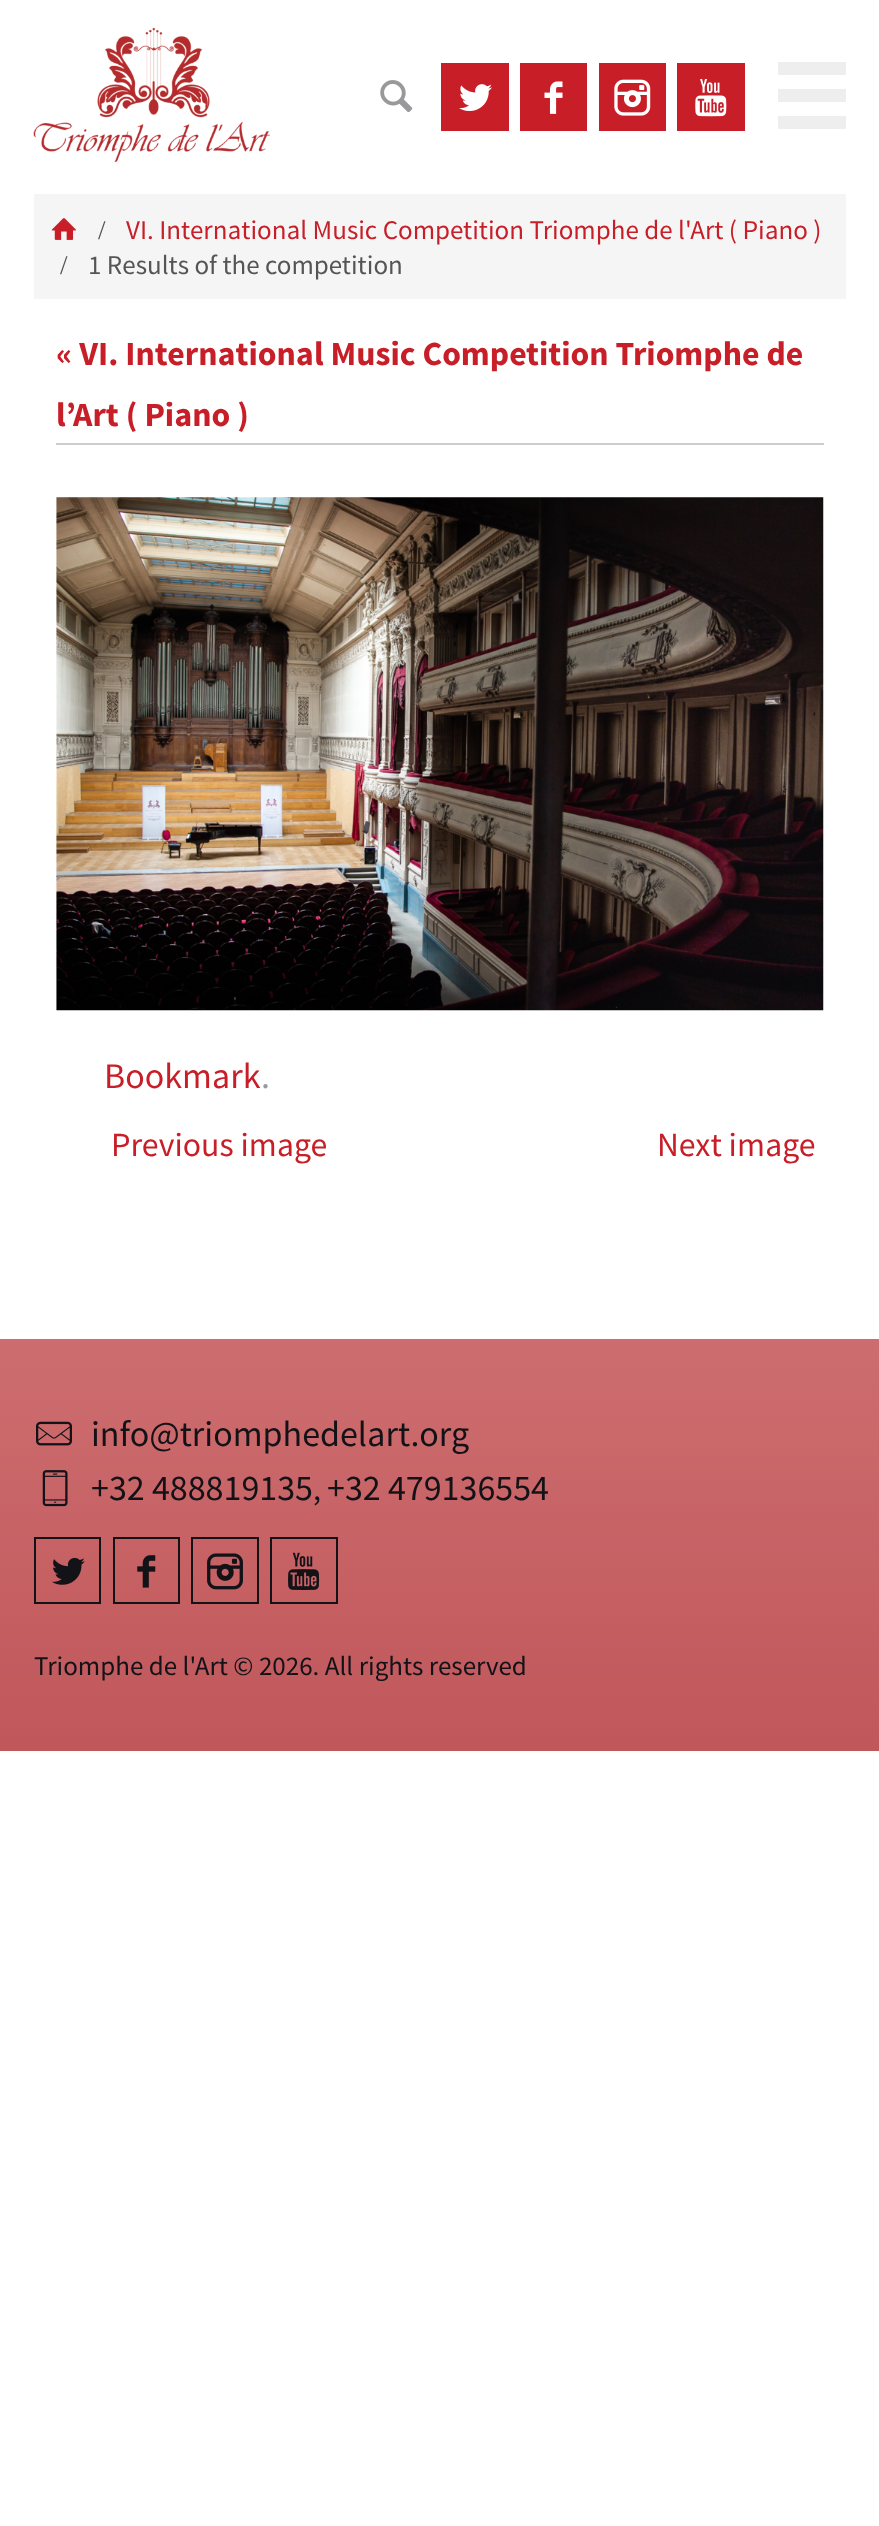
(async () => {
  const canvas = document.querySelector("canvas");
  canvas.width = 879;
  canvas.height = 2526;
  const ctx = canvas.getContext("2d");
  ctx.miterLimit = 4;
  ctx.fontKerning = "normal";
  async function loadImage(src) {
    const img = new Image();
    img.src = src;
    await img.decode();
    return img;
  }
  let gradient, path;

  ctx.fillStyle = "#ffffff";
  ctx.fillRect(0, 0, 879, 2526);
  ctx.drawImage(await loadImage("img/1.png"), 33, 27, 237, 135);
  ctx.drawImage(await loadImage("img/2.png"), 380, 80, 33, 33);
  ctx.fillStyle = "#c81e28";
  ctx.fillRect(441, 63, 68, 68);
  ctx.drawImage(await loadImage("img/3.png"), 459, 84, 33, 27);
  ctx.fillRect(520, 63, 67, 68);
  ctx.drawImage(await loadImage("img/4.png"), 544, 81, 19, 33);
  ctx.fillRect(599, 63, 67, 68);
  ctx.drawImage(await loadImage("img/5.png"), 614, 79, 37, 37);
  ctx.fillRect(677, 63, 68, 68);
  ctx.drawImage(await loadImage("img/6.png"), 695, 79, 32, 38);
  ctx.fillStyle = "#eeeeee";
  path = new Path2D("M778 62V75H846V62ZM778 89V102H846V89ZM778 116V129H846V116Z");
  ctx.fill(path);
  ctx.fillStyle = "#f5f5f5";
  ctx.fillRect(34, 194, 812, 105);
  ctx.drawImage(await loadImage("img/7.png"), 51, 218, 25, 22);
  ctx.fillStyle = "#cccccc";
  ctx.fillRect(56, 443, 768, 2);
  ctx.drawImage(await loadImage("img/8.png"), 56, 497, 768, 514);
  gradient = ctx.createLinearGradient(440, 1751, 440, 1339);
  gradient.addColorStop(0, "#c0575b");
  gradient.addColorStop(1, "#cd6d6f");
  ctx.fillStyle = gradient;
  ctx.fillRect(0, 1339, 879, 412);
  ctx.drawImage(await loadImage("img/9.png"), 36, 1421, 36, 25);
  ctx.drawImage(await loadImage("img/10.png"), 42, 1470, 26, 37);
  ctx.strokeStyle = "#131217";
  ctx.lineWidth = 2;
  ctx.strokeRect(35, 1538, 65, 65);
  ctx.drawImage(await loadImage("img/11.png"), 52, 1557, 33, 28);
  ctx.strokeRect(114, 1538, 65, 65);
  ctx.drawImage(await loadImage("img/12.png"), 137, 1555, 19, 33);
  ctx.strokeRect(192, 1538, 66, 65);
  ctx.drawImage(await loadImage("img/13.png"), 207, 1553, 36, 37);
  ctx.strokeRect(271, 1538, 66, 65);
  ctx.drawImage(await loadImage("img/14.png"), 288, 1552, 32, 38);
  ctx.font = "27px Liberation Serif";
  ctx.fillStyle = "#555555";
  ctx.fillText("/", 98, 239);
  ctx.font = "27px Source Sans Pro";
  ctx.fillStyle = "#c81e28";
  ctx.fillText("VI. International Music Competition Triomphe de l'Art ( Piano )", 126, 239);
  ctx.font = "27px Liberation Serif";
  ctx.fillStyle = "#555555";
  ctx.fillText("/", 60, 274);
  ctx.font = "27px Source Sans Pro";
  ctx.fillText("1 Results of the competition", 88, 274);
  ctx.font = "bold 33.75px Source Sans Pro";
  ctx.fillStyle = "#c81e28";
  ctx.fillText("« VI. International Music Competition Triomphe de", 56, 365);
  ctx.fillText("l’Art ( Piano )", 56, 426);
  ctx.font = "36px Source Sans Pro";
  ctx.fillText("Bookmark", 104, 1088);
  ctx.fillStyle = "#999999";
  ctx.fillText(".", 261, 1088);
  ctx.font = "33.75px Source Sans Pro";
  ctx.fillStyle = "#c81e28";
  ctx.fillText("Previous image", 111, 1156);
  ctx.fillText("Next image", 657, 1156);
  ctx.font = "36px Source Sans Pro";
  ctx.fillStyle = "#131217";
  ctx.fillText("info@triomphedelart.org", 91, 1446);
  ctx.fillText("+32 488819135", 91, 1500);
  ctx.font = "32px Source Sans Pro";
  ctx.fillText(",", 313, 1500);
  ctx.font = "36px Source Sans Pro";
  ctx.fillText("+32 479136554", 327, 1500);
  ctx.font = "27px Source Sans Pro";
  ctx.fillText("Triomphe de l'Art © 2026. All rights reserved", 34, 1675);
})();
